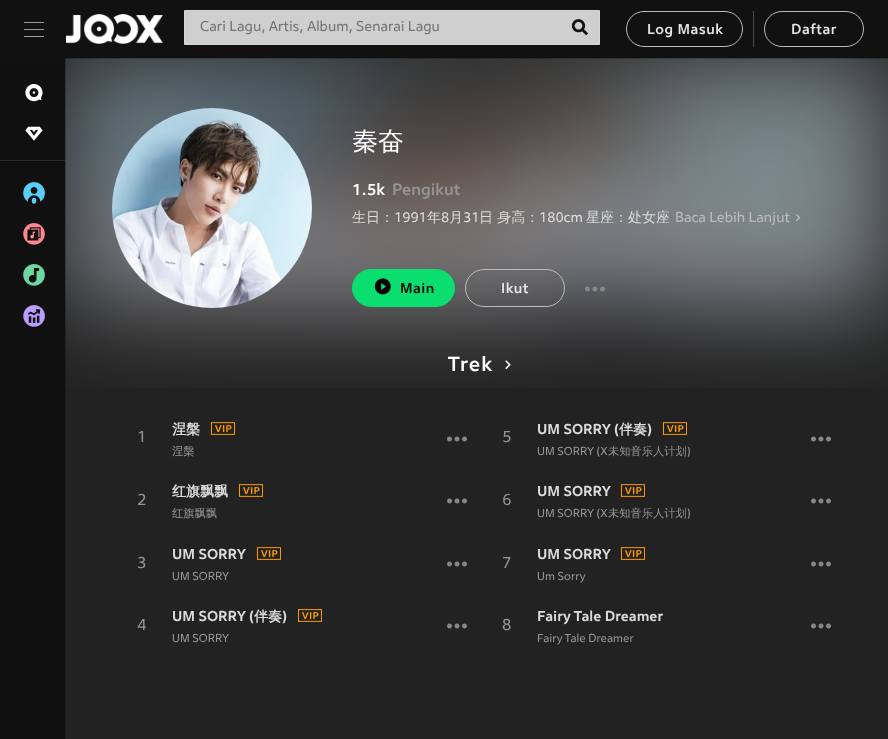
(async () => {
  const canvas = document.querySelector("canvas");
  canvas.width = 888;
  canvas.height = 739;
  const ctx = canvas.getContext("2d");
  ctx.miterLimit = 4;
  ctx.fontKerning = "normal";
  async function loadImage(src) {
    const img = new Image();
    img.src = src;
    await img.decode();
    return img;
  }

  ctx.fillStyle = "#222222";
  ctx.fillRect(0, 0, 888, 739);
  ctx.drawImage(await loadImage("img/9.png"), 65, 58, 823, 330);
  ctx.fillStyle = "rgba(0, 0, 0, 0.2)";
  ctx.filter = "blur(0.5px)";
  ctx.beginPath();
  ctx.rect(0, 1, 888, 58);
  ctx.fill();
  ctx.filter = "none";
  for (const [x, y, w, h, color] of [
    [0, 0, 888, 58, "#111111"],
    [24, 22, 20, 1, "#9b9b9b"],
    [24, 29, 20, 1, "#9b9b9b"],
    [24, 36, 20, 1, "#9b9b9b"],
  ]) {
    ctx.fillStyle = color;
    ctx.fillRect(x, y, w, h);
  }
  ctx.drawImage(await loadImage("img/1.png"), 66, 14, 97, 30);
  ctx.fillStyle = "#cfcfcf";
  ctx.beginPath();
  ctx.rect(184.5, 10.5, 415, 34);
  ctx.fill();
  ctx.strokeStyle = "#d4d4d4";
  ctx.stroke();
  ctx.drawImage(await loadImage("img/2.png"), 571, 19, 17, 17);
  ctx.beginPath();
  ctx.roundRect(626.5, 11.5, 116, 35, 17.5);
  ctx.strokeStyle = "#bcbcbc";
  ctx.stroke();
  ctx.fillStyle = "#4a4a4a";
  ctx.fillRect(753, 11, 1, 36);
  ctx.beginPath();
  ctx.roundRect(764.5, 11.5, 99, 35, 17.5);
  ctx.stroke();
  ctx.fillStyle = "rgba(0, 0, 0, 0.2)";
  ctx.filter = "blur(0.5px)";
  ctx.beginPath();
  ctx.rect(1, 58, 65, 681);
  ctx.fill();
  ctx.filter = "none";
  ctx.fillStyle = "#101010";
  ctx.fillRect(0, 58, 65, 681);
  ctx.fillStyle = "#2b2b2b";
  ctx.fillRect(0, 160, 65, 1);
  ctx.drawImage(await loadImage("img/3.png"), 25, 84, 18, 18);
  ctx.drawImage(await loadImage("img/4.png"), 25, 126, 18, 15);
  ctx.drawImage(await loadImage("img/5.png"), 23, 182, 22, 22);
  ctx.drawImage(await loadImage("img/6.png"), 23, 223, 22, 22);
  ctx.drawImage(await loadImage("img/7.png"), 23, 264, 22, 22);
  ctx.drawImage(await loadImage("img/8.png"), 23, 305, 22, 22);
  ctx.drawImage(await loadImage("img/10.png"), 112, 108, 200, 200);
  ctx.drawImage(await loadImage("img/11.png"), 795, 214, 6, 8);
  ctx.fillStyle = "#09de6e";
  ctx.beginPath();
  ctx.roundRect(352.5, 269.5, 102, 37, 18.5);
  ctx.fill();
  ctx.strokeStyle = "#09de6e";
  ctx.stroke();
  ctx.drawImage(await loadImage("img/12.png"), 374, 278, 17, 17);
  ctx.beginPath();
  ctx.roundRect(465.5, 269.5, 99, 37, 18.5);
  ctx.strokeStyle = "#bcbcbc";
  ctx.stroke();
  ctx.drawImage(await loadImage("img/13.png"), 585, 286, 20, 6);
  ctx.drawImage(await loadImage("img/14.png"), 505, 360, 6, 10);
  ctx.drawImage(await loadImage("img/15.png"), 210, 422, 25, 13);
  ctx.drawImage(await loadImage("img/16.png"), 447, 436, 20, 6);
  ctx.drawImage(await loadImage("img/15.png"), 662, 422, 25, 13);
  ctx.drawImage(await loadImage("img/16.png"), 811, 436, 20, 6);
  ctx.drawImage(await loadImage("img/15.png"), 238, 484, 25, 13);
  ctx.drawImage(await loadImage("img/16.png"), 447, 498, 20, 6);
  ctx.drawImage(await loadImage("img/15.png"), 620, 484, 25, 13);
  ctx.drawImage(await loadImage("img/16.png"), 811, 498, 20, 6);
  ctx.drawImage(await loadImage("img/15.png"), 256, 547, 25, 13);
  ctx.drawImage(await loadImage("img/16.png"), 447, 561, 20, 6);
  ctx.drawImage(await loadImage("img/15.png"), 620, 547, 25, 13);
  ctx.drawImage(await loadImage("img/16.png"), 811, 561, 20, 6);
  ctx.drawImage(await loadImage("img/15.png"), 297, 609, 25, 13);
  ctx.drawImage(await loadImage("img/16.png"), 447, 623, 20, 6);
  ctx.drawImage(await loadImage("img/16.png"), 811, 623, 20, 6);
  ctx.font = "14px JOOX";
  ctx.fillStyle = "#757575";
  ctx.fillText("Cari Lagu, Artis, Album, Senarai Lagu", 200, 31);
  ctx.letterSpacing = "0.5px";
  ctx.font = "500 14px JOOX";
  ctx.fillStyle = "#e5e5e5";
  ctx.fillText("Log Masuk", 647, 34);
  ctx.fillText("Daftar", 791, 34);
  ctx.letterSpacing = "0px";
  ctx.font = "500 26px WenQuanYi Zen Hei";
  ctx.fillStyle = "#ffffff";
  ctx.fillText("秦奋", 352, 150);
  ctx.font = "500 16px JOOX";
  ctx.fillText("1.5k", 352, 195);
  ctx.fillStyle = "#959595";
  ctx.fillText("Pengikut", 392, 195);
  ctx.font = "500 14px WenQuanYi Zen Hei";
  ctx.fillStyle = "#dcdbdb";
  ctx.fillText("生日：", 352, 222);
  ctx.font = "14px JOOX";
  ctx.fillText("1991", 394, 222);
  ctx.font = "500 14px WenQuanYi Zen Hei";
  ctx.fillText("年", 427, 222);
  ctx.font = "14px JOOX";
  ctx.fillText("8", 441, 222);
  ctx.font = "500 14px WenQuanYi Zen Hei";
  ctx.fillText("月", 449, 222);
  ctx.font = "14px JOOX";
  ctx.fillText("31", 463, 222);
  ctx.font = "500 14px WenQuanYi Zen Hei";
  ctx.fillText("日 身高：", 479, 222);
  ctx.font = "14px JOOX";
  ctx.fillText("180cm", 539, 222);
  ctx.font = "500 14px WenQuanYi Zen Hei";
  ctx.fillText("星座：处女座", 586, 222);
  ctx.font = "14px JOOX";
  ctx.fillStyle = "#bcbcbc";
  ctx.fillText("Baca Lebih Lanjut", 675, 222);
  ctx.letterSpacing = "0.5px";
  ctx.font = "500 14px JOOX";
  ctx.fillStyle = "#000000";
  ctx.fillText("Main", 400, 293);
  ctx.fillStyle = "#e5e5e5";
  ctx.fillText("Ikut", 501, 293);
  ctx.letterSpacing = "1px";
  ctx.font = "500 20px JOOX";
  ctx.fillStyle = "#ffffff";
  ctx.fillText("Trek", 448, 371);
  ctx.letterSpacing = "0px";
  ctx.font = "16px JOOX";
  ctx.fillStyle = "#959595";
  ctx.fillText("1", 137, 442);
  ctx.font = "bold 14px WenQuanYi Zen Hei";
  ctx.fillStyle = "#dcdbdb";
  ctx.fillText("涅槃", 172, 434);
  ctx.font = "500 11.25px WenQuanYi Zen Hei";
  ctx.fillStyle = "#959595";
  ctx.fillText("涅槃", 172, 455);
  ctx.font = "16px JOOX";
  ctx.fillText("5", 502, 442);
  ctx.font = "bold 14px JOOX";
  ctx.fillStyle = "#dcdbdb";
  ctx.fillText("UM SORRY (", 537, 434);
  ctx.font = "bold 14px WenQuanYi Zen Hei";
  ctx.fillText("伴奏", 619, 434);
  ctx.font = "bold 14px JOOX";
  ctx.fillText(")", 647, 434);
  ctx.font = "11.25px JOOX";
  ctx.fillStyle = "#959595";
  ctx.fillText("UM SORRY (X", 537, 455);
  ctx.font = "500 11.25px WenQuanYi Zen Hei";
  ctx.fillText("未知音乐人计划", 608, 455);
  ctx.font = "11.25px JOOX";
  ctx.fillText(")", 687, 455);
  ctx.font = "16px JOOX";
  ctx.fillText("2", 137, 505);
  ctx.font = "bold 14px WenQuanYi Zen Hei";
  ctx.fillStyle = "#dcdbdb";
  ctx.fillText("红旗飘飘", 172, 496);
  ctx.font = "500 11.25px WenQuanYi Zen Hei";
  ctx.fillStyle = "#959595";
  ctx.fillText("红旗飘飘", 172, 517);
  ctx.font = "16px JOOX";
  ctx.fillText("6", 502, 505);
  ctx.font = "bold 14px JOOX";
  ctx.fillStyle = "#dcdbdb";
  ctx.fillText("UM SORRY", 537, 496);
  ctx.font = "11.25px JOOX";
  ctx.fillStyle = "#959595";
  ctx.fillText("UM SORRY (X", 537, 517);
  ctx.font = "500 11.25px WenQuanYi Zen Hei";
  ctx.fillText("未知音乐人计划", 608, 517);
  ctx.font = "11.25px JOOX";
  ctx.fillText(")", 687, 517);
  ctx.font = "16px JOOX";
  ctx.fillText("3", 137, 568);
  ctx.font = "bold 14px JOOX";
  ctx.fillStyle = "#dcdbdb";
  ctx.fillText("UM SORRY", 172, 559);
  ctx.font = "11.25px JOOX";
  ctx.fillStyle = "#959595";
  ctx.fillText("UM SORRY", 172, 580);
  ctx.font = "16px JOOX";
  ctx.fillText("7", 502, 568);
  ctx.font = "bold 14px JOOX";
  ctx.fillStyle = "#dcdbdb";
  ctx.fillText("UM SORRY", 537, 559);
  ctx.font = "11.25px JOOX";
  ctx.fillStyle = "#959595";
  ctx.fillText("Um Sorry", 537, 580);
  ctx.font = "16px JOOX";
  ctx.fillText("4", 137, 630);
  ctx.font = "bold 14px JOOX";
  ctx.fillStyle = "#dcdbdb";
  ctx.fillText("UM SORRY (", 172, 621);
  ctx.font = "bold 14px WenQuanYi Zen Hei";
  ctx.fillText("伴奏", 254, 621);
  ctx.font = "bold 14px JOOX";
  ctx.fillText(")", 282, 621);
  ctx.font = "11.25px JOOX";
  ctx.fillStyle = "#959595";
  ctx.fillText("UM SORRY", 172, 642);
  ctx.font = "16px JOOX";
  ctx.fillText("8", 502, 630);
  ctx.font = "bold 14px JOOX";
  ctx.fillStyle = "#dcdbdb";
  ctx.fillText("Fairy Tale Dreamer", 537, 621);
  ctx.font = "11.25px JOOX";
  ctx.fillStyle = "#959595";
  ctx.fillText("Fairy Tale Dreamer", 537, 642);
})();
